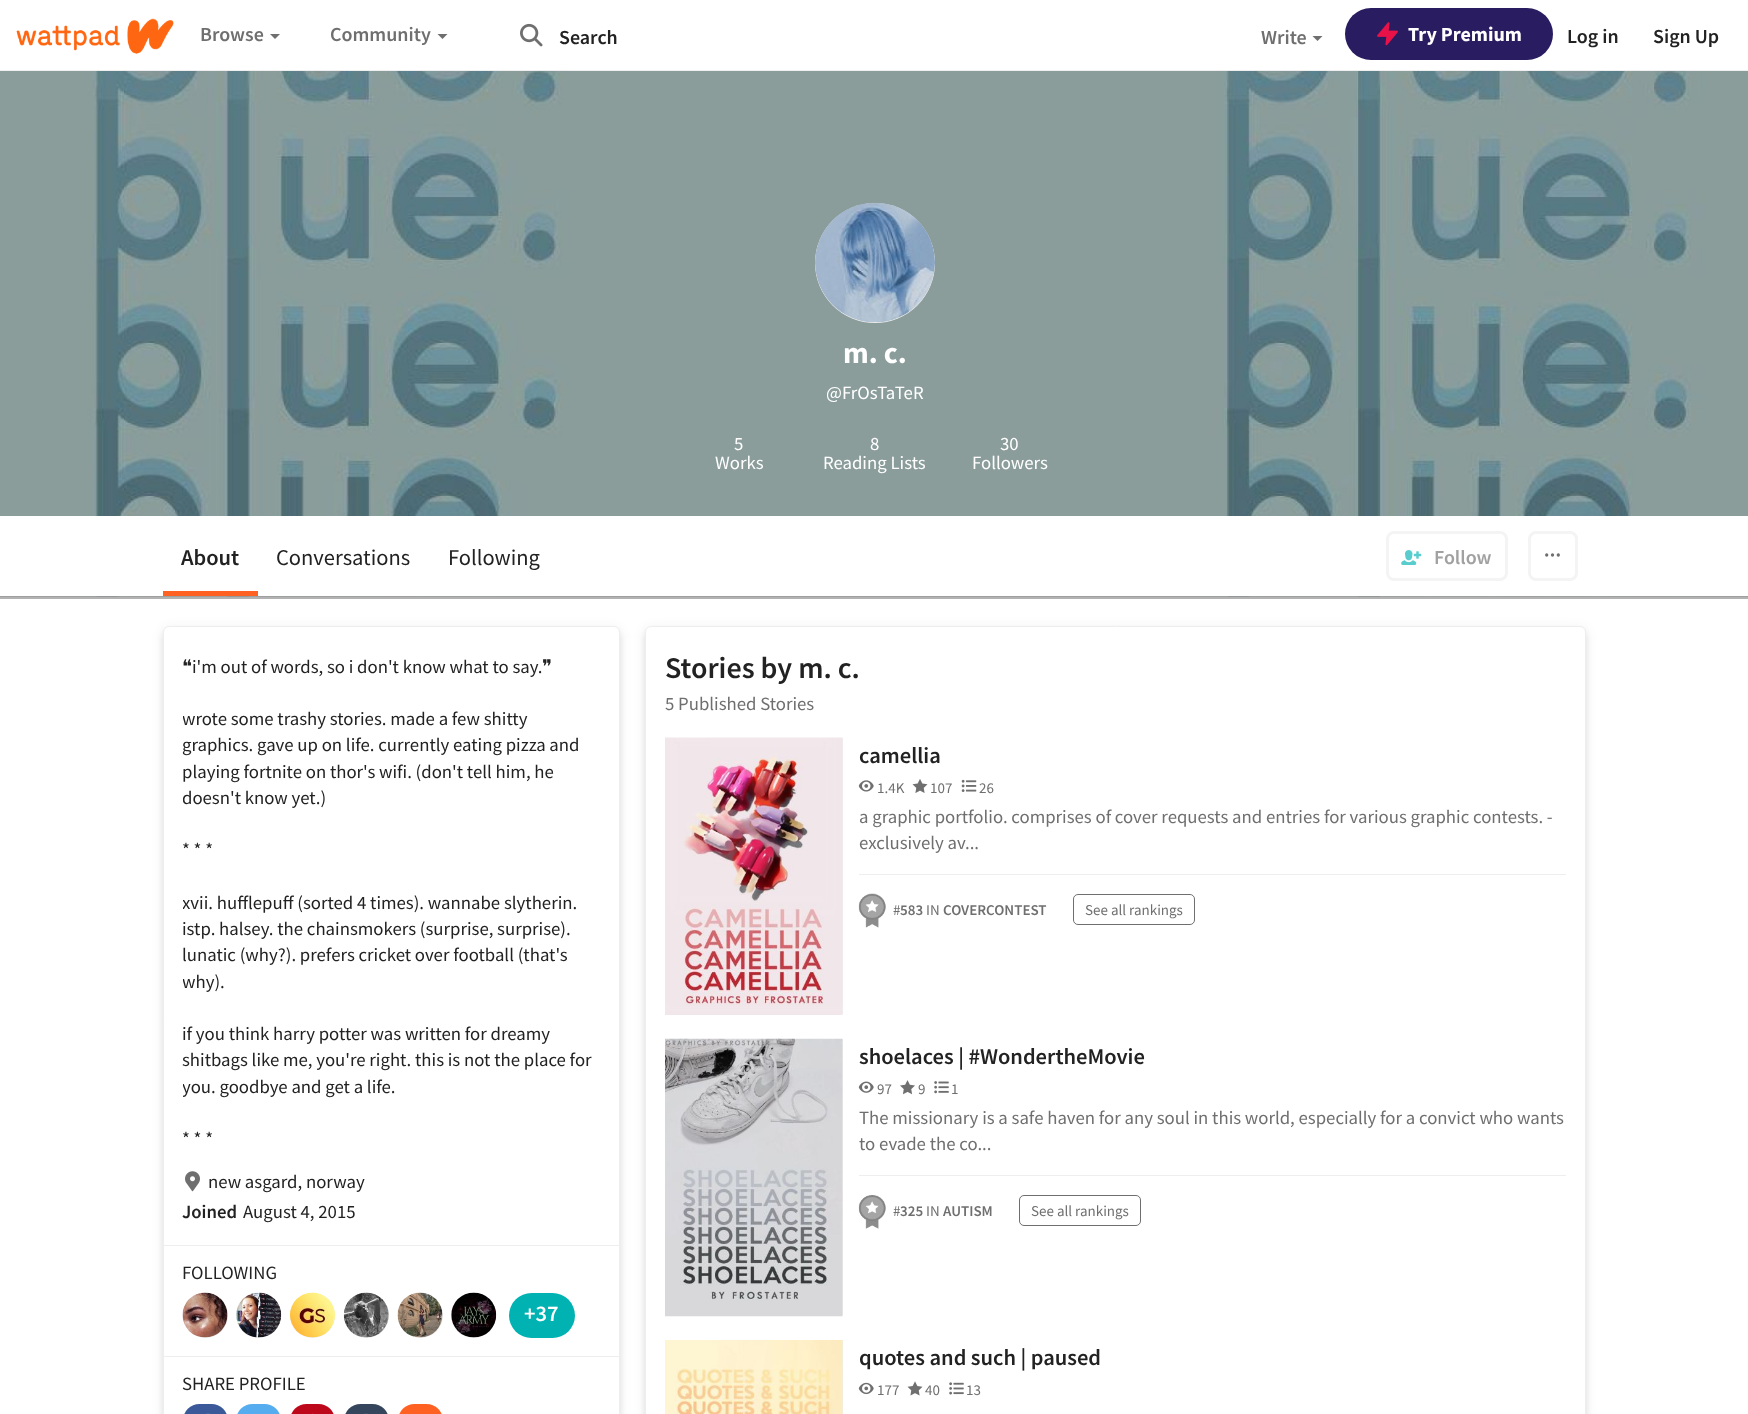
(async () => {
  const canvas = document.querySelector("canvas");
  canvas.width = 1748;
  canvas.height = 1414;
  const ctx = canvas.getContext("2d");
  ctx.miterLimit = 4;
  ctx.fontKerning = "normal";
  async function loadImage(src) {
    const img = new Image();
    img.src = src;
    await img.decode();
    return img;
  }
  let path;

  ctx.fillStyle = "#ffffff";
  ctx.fillRect(0, 0, 1748, 1414);
  ctx.fillStyle = "#eeeeee";
  ctx.fillRect(0, 70, 1748, 1);
  ctx.drawImage(await loadImage("img/1.png"), 16, 18, 158, 36);
  ctx.fillStyle = "#6f6f6f";
  path = new Path2D("M270 34H280L275 39Z");
  ctx.fill(path);
  path = new Path2D("M437.5 34H447.5L442.5 39Z");
  ctx.fill(path);
  ctx.drawImage(await loadImage("img/2.png"), 520, 23, 23, 24);
  path = new Path2D("M1312.5 36H1322.5L1317.5 41Z");
  ctx.fill(path);
  ctx.fillStyle = "#2a1c60";
  ctx.beginPath();
  ctx.roundRect(1345, 8, 208, 52, 26);
  ctx.fill();
  ctx.drawImage(await loadImage("img/3.png"), 1377, 22, 21, 24);
  ctx.drawImage(await loadImage("img/4.png"), 0, 71, 1748, 526);
  ctx.fillStyle = "#eeeeee";
  ctx.beginPath();
  ctx.arc(875, 263, 60, 0, Math.PI * 2);
  ctx.fill();
  ctx.drawImage(await loadImage("img/5.png"), 815, 202, 120, 121);
  ctx.fillStyle = "rgba(0, 0, 0, 0.3)";
  path = new Path2D("M0 596V599H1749V519V596Z");
  ctx.fill(path);
  ctx.fillStyle = "#ffffff";
  ctx.fillRect(0, 516, 1748, 80);
  ctx.fillStyle = "#ff6122";
  ctx.fillRect(163, 591, 95, 5);
  ctx.beginPath();
  ctx.roundRect(1387.5, 532.5, 119, 47, 6.5);
  ctx.strokeStyle = "#f4f4f4";
  ctx.lineWidth = 3;
  ctx.stroke();
  ctx.drawImage(await loadImage("img/6.png"), 1401, 550, 21, 15);
  ctx.beginPath();
  ctx.roundRect(1529.5, 532.5, 47, 47, 6.5);
  ctx.stroke();
  ctx.beginPath();
  ctx.arc(1546.7, 555, 0.8, 0, Math.PI * 2);
  ctx.strokeStyle = "#6f6f6f";
  ctx.lineWidth = 1.7;
  ctx.stroke();
  ctx.beginPath();
  ctx.arc(1552.5, 555, 0.8, 0, Math.PI * 2);
  ctx.stroke();
  ctx.beginPath();
  ctx.arc(1558.3, 555, 0.8, 0, Math.PI * 2);
  ctx.stroke();
  ctx.fillStyle = "rgba(34, 34, 34, 0.1)";
  ctx.filter = "blur(3px)";
  ctx.beginPath();
  ctx.roundRect(163, 631, 457, 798, 6);
  ctx.fill();
  ctx.filter = "none";
  ctx.fillStyle = "rgba(34, 34, 34, 0.08)";
  ctx.filter = "blur(6px)";
  ctx.beginPath();
  ctx.roundRect(163, 628, 457, 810, 6);
  ctx.fill();
  ctx.filter = "none";
  ctx.fillStyle = "#ffffff";
  ctx.beginPath();
  ctx.roundRect(163.5, 626.5, 456, 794, 5.5);
  ctx.fill();
  ctx.strokeStyle = "#eeeeee";
  ctx.lineWidth = 1;
  ctx.stroke();
  ctx.drawImage(await loadImage("img/7.png"), 185, 1171, 15, 21);
  ctx.fillStyle = "#eeeeee";
  ctx.fillRect(164, 1245, 455, 1);
  ctx.beginPath();
  ctx.arc(205.5, 1315.5, 22.5, 0, Math.PI * 2);
  ctx.fill();
  ctx.drawImage(await loadImage("img/8.png"), 182, 1292, 46, 46);
  ctx.beginPath();
  ctx.arc(258.5, 1315.5, 22.5, 0, Math.PI * 2);
  ctx.fill();
  ctx.drawImage(await loadImage("img/9.png"), 236, 1292, 46, 46);
  ctx.beginPath();
  ctx.arc(312.5, 1315.5, 22.5, 0, Math.PI * 2);
  ctx.fill();
  ctx.drawImage(await loadImage("img/10.png"), 290, 1292, 45, 46);
  ctx.beginPath();
  ctx.arc(366.5, 1315.5, 22.5, 0, Math.PI * 2);
  ctx.fill();
  ctx.drawImage(await loadImage("img/11.png"), 343, 1292, 46, 46);
  ctx.beginPath();
  ctx.arc(420.5, 1315.5, 22.5, 0, Math.PI * 2);
  ctx.fill();
  ctx.drawImage(await loadImage("img/12.png"), 397, 1292, 46, 46);
  ctx.beginPath();
  ctx.arc(473.5, 1315.5, 22.5, 0, Math.PI * 2);
  ctx.fill();
  ctx.drawImage(await loadImage("img/13.png"), 451, 1292, 46, 46);
  ctx.fillStyle = "#00b2b2";
  ctx.beginPath();
  ctx.roundRect(509, 1293, 66, 45, 22.5);
  ctx.fill();
  ctx.fillStyle = "#eeeeee";
  ctx.fillRect(164, 1356, 455, 1);
  ctx.fillStyle = "#3b5998";
  ctx.beginPath();
  ctx.roundRect(183, 1404, 45, 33, 22.5);
  ctx.fill();
  ctx.fillStyle = "#49659f";
  ctx.fillRect(206, 1413, 4, 1);
  ctx.fillStyle = "#55acee";
  ctx.beginPath();
  ctx.roundRect(236, 1404, 45, 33, 22.5);
  ctx.fill();
  ctx.fillStyle = "#bd081c";
  ctx.beginPath();
  ctx.roundRect(290, 1404, 45, 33, 22.5);
  ctx.fill();
  ctx.fillStyle = "#c2192c";
  ctx.fillRect(312, 1413, 1, 1);
  ctx.fillStyle = "#35465c";
  ctx.beginPath();
  ctx.roundRect(344, 1404, 45, 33, 22.5);
  ctx.fill();
  ctx.drawImage(await loadImage("img/14.png"), 364, 1413, 4, 1);
  ctx.fillStyle = "#ff6122";
  ctx.beginPath();
  ctx.roundRect(398, 1404, 45, 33, 22.5);
  ctx.fill();
  ctx.fillStyle = "rgba(34, 34, 34, 0.1)";
  ctx.filter = "blur(3px)";
  ctx.beginPath();
  ctx.roundRect(645, 631, 941, 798, 6);
  ctx.fill();
  ctx.filter = "none";
  ctx.fillStyle = "rgba(34, 34, 34, 0.08)";
  ctx.filter = "blur(6px)";
  ctx.beginPath();
  ctx.roundRect(645, 628, 941, 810, 6);
  ctx.fill();
  ctx.filter = "none";
  ctx.fillStyle = "#ffffff";
  ctx.beginPath();
  ctx.roundRect(645.5, 626.5, 940, 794, 5.5);
  ctx.fill();
  ctx.stroke();
  ctx.fillStyle = "#eeeeee";
  ctx.fillRect(842, 738, 1, 276);
  ctx.drawImage(await loadImage("img/15.png"), 665, 737, 178, 278);
  ctx.drawImage(await loadImage("img/16.png"), 858, 780, 16, 12);
  ctx.drawImage(await loadImage("img/17.png"), 912, 779, 16, 14);
  ctx.drawImage(await loadImage("img/18.png"), 961, 779, 16, 13);
  ctx.fillRect(859, 874, 707, 1);
  ctx.drawImage(await loadImage("img/19.png"), 858, 893, 28, 35);
  ctx.beginPath();
  ctx.roundRect(1073.5, 894.5, 121, 30, 4.5);
  ctx.strokeStyle = "#6f6f6f";
  ctx.stroke();
  ctx.fillRect(842, 1039, 1, 276);
  ctx.drawImage(await loadImage("img/20.png"), 665, 1038, 178, 279);
  ctx.drawImage(await loadImage("img/21.png"), 858, 1081, 16, 12);
  ctx.drawImage(await loadImage("img/22.png"), 900, 1080, 15, 15);
  ctx.drawImage(await loadImage("img/23.png"), 934, 1081, 15, 13);
  ctx.fillRect(859, 1175, 707, 1);
  ctx.drawImage(await loadImage("img/24.png"), 858, 1195, 28, 34);
  ctx.beginPath();
  ctx.roundRect(1019.5, 1195.5, 121, 30, 4.5);
  ctx.stroke();
  ctx.fillRect(842, 1340, 1, 74);
  ctx.drawImage(await loadImage("img/25.png"), 665, 1340, 178, 74);
  ctx.drawImage(await loadImage("img/26.png"), 858, 1382, 16, 13);
  ctx.drawImage(await loadImage("img/27.png"), 907, 1381, 16, 15);
  ctx.drawImage(await loadImage("img/28.png"), 949, 1382, 15, 13);
  ctx.font = "600 20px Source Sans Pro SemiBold";
  ctx.fillStyle = "#6f6f6f";
  ctx.fillText("Browse", 200, 41);
  ctx.fillText("Community", 330, 41);
  ctx.fillStyle = "#222222";
  ctx.fillText("Search", 559, 44);
  ctx.fillStyle = "#6f6f6f";
  ctx.fillText("Write", 1261, 44);
  ctx.font = "bold 20px Source Sans Pro";
  ctx.fillStyle = "#ffffff";
  ctx.fillText("Try Premium", 1408, 41);
  ctx.font = "600 20px Source Sans Pro SemiBold";
  ctx.fillStyle = "#222222";
  ctx.fillText("Log in", 1567, 43);
  ctx.fillText("Sign Up", 1653, 43);
  ctx.font = "bold 30px Source Sans Pro";
  ctx.fillStyle = "#ffffff";
  ctx.fillText("m. c.", 843, 363);
  ctx.font = "18.75px Source Sans Pro";
  for (const [text, x, y] of [
    ["@FrOsTaTeR", 826, 399],
    ["5", 734, 450],
    ["Works", 715, 469],
    ["8", 870, 450],
    ["Reading Lists", 823, 469],
    ["30", 1000, 450],
    ["Followers", 972, 469],
  ]) {
    ctx.fillText(text, x, y);
  }
  ctx.font = "600 22.5px Source Sans Pro SemiBold";
  ctx.fillStyle = "#222222";
  ctx.fillText("About", 181, 565);
  ctx.font = "22.5px Source Sans Pro";
  ctx.fillText("Conversations", 276, 565);
  ctx.fillText("Following", 448, 565);
  ctx.font = "600 20px Source Sans Pro SemiBold";
  ctx.fillStyle = "#a1a1a1";
  ctx.fillText("Follow", 1434, 564);
  ctx.font = "18.75px DejaVu Sans";
  ctx.fillStyle = "#222222";
  ctx.fillText("❝", 182, 673);
  ctx.font = "18.75px Source Sans Pro";
  ctx.fillText("i'm out of words, so i don't know what to say.", 192, 673);
  ctx.font = "18.75px DejaVu Sans";
  ctx.fillText("❞", 542, 673);
  ctx.save();
  ctx.beginPath();
  ctx.rect(183, 653, 417, 498);
  ctx.clip();
  ctx.font = "18.75px Source Sans Pro";
  ctx.fillText("wrote some trashy stories. made a few shitty", 182, 725);
  ctx.restore();
  ctx.font = "18.75px Source Sans Pro";
  ctx.fillText("graphics. gave up on life. currently eating pizza and", 182, 751);
  ctx.fillText("playing fortnite on thor's wifi. (don't tell him, he", 182, 778);
  ctx.save();
  ctx.beginPath();
  ctx.rect(183, 653, 417, 498);
  ctx.clip();
  ctx.fillText("doesn't know yet.)", 182, 804);
  ctx.restore();
  ctx.fillText("* * *", 182, 856);
  ctx.save();
  ctx.beginPath();
  ctx.rect(183, 653, 417, 498);
  ctx.clip();
  ctx.fillText("xvii. hufflepuff (sorted 4 times). wannabe slytherin.", 182, 909);
  ctx.restore();
  ctx.fillText("istp. halsey. the chainsmokers (surprise, surprise).", 182, 935);
  ctx.fillText("lunatic (why?). prefers cricket over football (that's", 182, 961);
  ctx.save();
  ctx.beginPath();
  ctx.rect(183, 653, 417, 498);
  ctx.clip();
  ctx.fillText("why).", 182, 988);
  ctx.restore();
  ctx.fillText("if you think harry potter was written for dreamy", 182, 1040);
  ctx.fillText("shitbags like me, you're right. this is not the place for", 182, 1066);
  ctx.save();
  ctx.beginPath();
  ctx.rect(183, 653, 417, 498);
  ctx.clip();
  ctx.fillText("you. goodbye and get a life.", 182, 1093);
  ctx.restore();
  ctx.fillText("* * *", 182, 1145);
  ctx.fillText("new asgard, norway", 208, 1188);
  ctx.font = "600 18.75px Source Sans Pro SemiBold";
  ctx.fillText("Joined", 182, 1218);
  ctx.font = "18.75px Source Sans Pro";
  ctx.fillText("August 4, 2015", 243, 1218);
  ctx.fillText("FOLLOWING", 182, 1279);
  ctx.font = "600 22.5px Source Sans Pro SemiBold";
  ctx.fillStyle = "#ffffff";
  ctx.fillText("+37", 524, 1321);
  ctx.font = "18.75px Source Sans Pro";
  ctx.fillStyle = "#222222";
  ctx.fillText("SHARE PROFILE", 182, 1390);
  ctx.font = "600 30px Source Sans Pro SemiBold";
  ctx.fillText("Stories by m. c.", 665, 678);
  ctx.font = "18.75px Source Sans Pro";
  ctx.fillStyle = "#6f6f6f";
  ctx.fillText("5 Published Stories", 665, 710);
  ctx.font = "600 22.5px Source Sans Pro SemiBold";
  ctx.fillStyle = "#222222";
  ctx.fillText("camellia", 859, 763);
  ctx.font = "15px Source Sans Pro";
  ctx.fillStyle = "#6f6f6f";
  for (const [text, x, y] of [
    ["1.4K", 877, 793],
    ["107", 930, 793],
    ["26", 979, 793],
  ]) {
    ctx.fillText(text, x, y);
  }
  ctx.font = "18.75px Source Sans Pro";
  ctx.fillText("a graphic portfolio. comprises of cover requests and entries for various graphic contests. -", 859, 823);
  ctx.fillText("exclusively av...", 859, 849);
  ctx.font = "15px Source Sans Pro";
  ctx.fillText("#", 893, 915);
  ctx.font = "600 15px Source Sans Pro SemiBold";
  ctx.fillText("583", 900, 915);
  ctx.font = "15px Source Sans Pro";
  ctx.fillText("IN", 926, 915);
  ctx.font = "600 15px Source Sans Pro SemiBold";
  ctx.fillText("COVERCONTEST", 943, 915);
  ctx.font = "15px Source Sans Pro";
  ctx.fillText("See all rankings", 1085, 915);
  ctx.font = "600 22.5px Source Sans Pro SemiBold";
  ctx.fillStyle = "#222222";
  ctx.fillText("shoelaces | #WondertheMovie", 859, 1064);
  ctx.font = "15px Source Sans Pro";
  ctx.fillStyle = "#6f6f6f";
  for (const [text, x, y] of [
    ["97", 877, 1094],
    ["9", 918, 1094],
    ["1", 951, 1094],
  ]) {
    ctx.fillText(text, x, y);
  }
  ctx.font = "18.75px Source Sans Pro";
  ctx.fillText("The missionary is a safe haven for any soul in this world, especially for a convict who wants", 859, 1124);
  ctx.fillText("to evade the co...", 859, 1150);
  ctx.font = "15px Source Sans Pro";
  ctx.fillText("#", 893, 1216);
  ctx.font = "600 15px Source Sans Pro SemiBold";
  ctx.fillText("325", 900, 1216);
  ctx.font = "15px Source Sans Pro";
  ctx.fillText("IN", 926, 1216);
  ctx.font = "600 15px Source Sans Pro SemiBold";
  ctx.fillText("AUTISM", 943, 1216);
  ctx.font = "15px Source Sans Pro";
  ctx.fillText("See all rankings", 1031, 1216);
  ctx.font = "600 22.5px Source Sans Pro SemiBold";
  ctx.fillStyle = "#222222";
  ctx.fillText("quotes and such | paused", 859, 1365);
  ctx.font = "15px Source Sans Pro";
  ctx.fillStyle = "#6f6f6f";
  for (const [text, x, y] of [
    ["177", 877, 1395],
    ["40", 925, 1395],
    ["13", 966, 1395],
  ]) {
    ctx.fillText(text, x, y);
  }
})();
